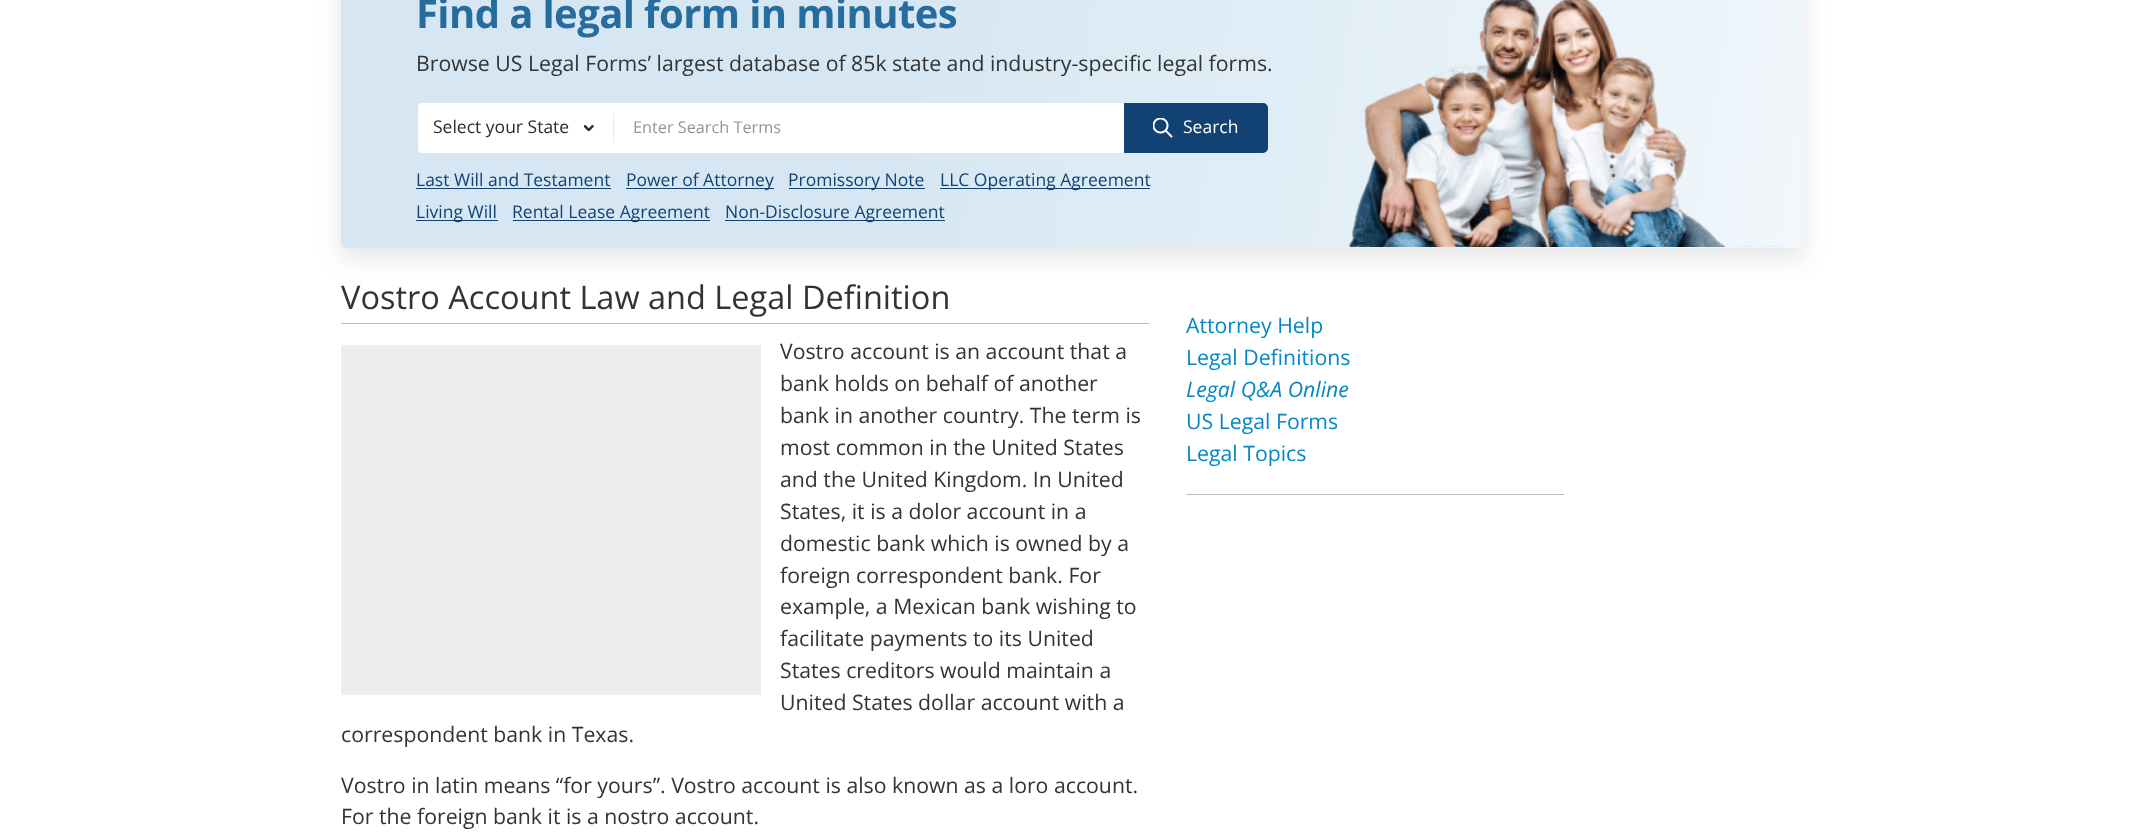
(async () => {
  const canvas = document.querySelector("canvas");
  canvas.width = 2145;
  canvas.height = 838;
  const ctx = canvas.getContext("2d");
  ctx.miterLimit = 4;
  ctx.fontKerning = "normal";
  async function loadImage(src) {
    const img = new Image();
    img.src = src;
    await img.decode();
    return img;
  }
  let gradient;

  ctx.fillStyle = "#ffffff";
  ctx.fillRect(0, 0, 2145, 838);
  ctx.fillStyle = "rgba(0, 0, 0, 0.1)";
  ctx.filter = "blur(12.5px)";
  ctx.beginPath();
  ctx.roundRect(341, -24, 1463, 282, 5);
  ctx.fill();
  ctx.filter = "none";
  gradient = ctx.createLinearGradient(338, -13, 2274, 303);
  gradient.addColorStop(0.29, "#d6e7f3");
  gradient.addColorStop(1, "#ffffff");
  ctx.fillStyle = gradient;
  ctx.beginPath();
  ctx.roundRect(341, -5, 1463, 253, 5);
  ctx.fill();
  ctx.fillStyle = "#ffffff";
  ctx.beginPath();
  ctx.roundRect(418, 103, 195, 50, [4, 0, 0, 4]);
  ctx.fill();
  ctx.drawImage(await loadImage("img/1.png"), 584, 125, 10, 6);
  ctx.fillRect(613, 103, 511, 50);
  ctx.fillStyle = "#e9e9e9";
  ctx.fillRect(613, 113, 1, 30);
  ctx.fillStyle = "#124273";
  ctx.beginPath();
  ctx.roundRect(1124, 103, 144, 50, [0, 5, 5, 0]);
  ctx.fill();
  ctx.drawImage(await loadImage("img/2.png"), 1153, 118, 20, 20);
  for (const [x, y, w, h, color] of [
    [416, 188, 195, 1, "#124273"],
    [626, 188, 148, 1, "#124273"],
    [789, 188, 136, 1, "#124273"],
    [940, 188, 210, 1, "#124273"],
    [416, 220, 82, 1, "#124273"],
    [513, 220, 197, 1, "#124273"],
    [725, 220, 220, 1, "#124273"],
  ]) {
    ctx.fillStyle = color;
    ctx.fillRect(x, y, w, h);
  }
  ctx.drawImage(await loadImage("img/3.png"), 1348, 0, 434, 247);
  for (const [x, y, w, h, color] of [
    [341, 323, 808, 1, "#bbbbbb"],
    [341, 345, 420, 350, "#eeeeee"],
    [1186, 494, 378, 1, "#bbbbbb"],
  ]) {
    ctx.fillStyle = color;
    ctx.fillRect(x, y, w, h);
  }
  ctx.letterSpacing = "-0.6px";
  ctx.font = "bold 40px Open Sans";
  ctx.fillStyle = "#266c9c";
  ctx.fillText("Find a legal form in minutes", 416, 28);
  ctx.letterSpacing = "0px";
  ctx.font = "21.25px Open Sans";
  ctx.fillStyle = "#333333";
  ctx.fillText("Browse US Legal Forms’ largest database of 85k state and industry-specific legal forms.", 416, 71);
  ctx.font = "17.5px Open Sans";
  ctx.fillStyle = "#2c2c2c";
  ctx.fillText("Select your State", 433, 133);
  ctx.font = "16.25px Open Sans";
  ctx.fillStyle = "#959595";
  ctx.fillText("Enter Search Terms", 633, 133);
  ctx.font = "17.5px Open Sans";
  ctx.fillStyle = "#ffffff";
  ctx.fillText("Search", 1183, 133);
  ctx.fillStyle = "#124273";
  for (const [text, x, y] of [
    ["Last Will and Testament", 416, 186],
    ["Power of Attorney", 626, 186],
    ["Promissory Note", 788, 186],
    ["LLC Operating Agreement", 940, 186],
    ["Living Will", 416, 218],
    ["Rental Lease Agreement", 512, 218],
    ["Non-Disclosure Agreement", 725, 218],
  ]) {
    ctx.fillText(text, x, y);
  }
  ctx.font = "32.5px Open Sans";
  ctx.fillStyle = "#333333";
  ctx.fillText("Vostro Account Law and Legal Definition", 341, 309);
  ctx.font = "21.25px Open Sans";
  for (const [text, x, y] of [
    ["Vostro account is an account that a", 780, 359],
    ["bank holds on behalf of another", 780, 391],
    ["bank in another country. The term is", 780, 423],
    ["most common in the United States", 780, 455],
    ["and the United Kingdom. In United", 780, 487],
    ["States, it is a dolor account in a", 780, 519],
    ["domestic bank which is owned by a", 780, 551],
    ["foreign correspondent bank. For", 780, 583],
    ["example, a Mexican bank wishing to", 780, 614],
    ["facilitate payments to its United", 780, 646],
    ["States creditors would maintain a", 780, 678],
    ["United States dollar account with a", 780, 710],
    ["correspondent bank in Texas.", 341, 742],
    ["Vostro in latin means “for yours”. Vostro account is also known as a loro account.", 341, 793],
    ["For the foreign bank it is a nostro account.", 341, 824],
  ]) {
    ctx.fillText(text, x, y);
  }
  ctx.fillStyle = "#0487c4";
  ctx.fillText("Attorney Help", 1186, 333);
  ctx.fillText("Legal Definitions", 1186, 365);
  ctx.font = "italic 21.25px Open Sans";
  ctx.fillText("Legal Q&A Online", 1186, 397);
  ctx.font = "21.25px Open Sans";
  ctx.fillText("US Legal Forms", 1186, 429);
  ctx.fillText("Legal Topics", 1186, 461);
})();
